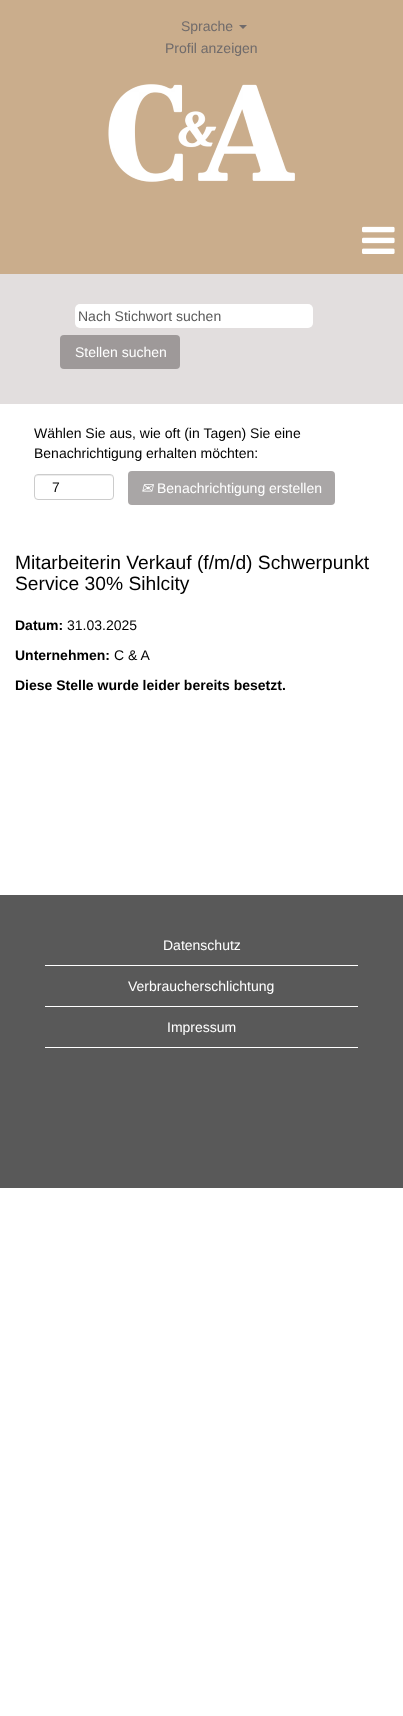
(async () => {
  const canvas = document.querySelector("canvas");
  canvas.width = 403;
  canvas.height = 1716;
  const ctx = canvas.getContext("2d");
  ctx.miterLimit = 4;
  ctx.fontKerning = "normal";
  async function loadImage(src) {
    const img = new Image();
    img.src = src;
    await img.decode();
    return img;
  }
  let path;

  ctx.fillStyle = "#ffffff";
  ctx.fillRect(0, 0, 403, 1716);
  ctx.fillStyle = "#caad8c";
  ctx.fillRect(0, 0, 403, 274);
  ctx.fillStyle = "#706b6b";
  path = new Path2D("M239 25H247L243 29Z");
  ctx.fill(path);
  ctx.drawImage(await loadImage("img/1.png"), 108, 84, 187, 98);
  ctx.drawImage(await loadImage("img/2.png"), 362, 226, 33, 28);
  ctx.fillStyle = "#e2dede";
  ctx.fillRect(0, 274, 403, 130);
  ctx.fillStyle = "#ffffff";
  ctx.beginPath();
  ctx.roundRect(75, 304, 238, 24, 5);
  ctx.fill();
  ctx.fillStyle = "#9e9999";
  ctx.beginPath();
  ctx.roundRect(60, 335, 120, 34, 4);
  ctx.fill();
  ctx.fillStyle = "#ececec";
  path = new Path2D("M38 476H110C112 476 113 477 113 479C113 472 102 475 98 475H50C46 475 35 472 35 479C35 477 36 476 38 476Z");
  ctx.fill(path);
  ctx.beginPath();
  ctx.roundRect(34.5, 474.5, 79, 25, 3.5);
  ctx.strokeStyle = "#cccccc";
  ctx.stroke();
  ctx.fillStyle = "#a9a6a6";
  ctx.beginPath();
  ctx.roundRect(128, 471, 207, 34, 4);
  ctx.fill();
  for (const [x, y, w, h, color] of [
    [0, 895, 403, 293, "#595959"],
    [45, 965, 313, 1, "#ffffff"],
    [45, 1006, 313, 1, "#ffffff"],
    [45, 1047, 313, 1, "#ffffff"],
  ]) {
    ctx.fillStyle = color;
    ctx.fillRect(x, y, w, h);
  }
  ctx.font = "14px Liberation Sans";
  ctx.fillStyle = "#706b6b";
  ctx.fillText("Sprache", 181, 31);
  ctx.fillText("Profil anzeigen", 165, 53);
  ctx.fillStyle = "#595959";
  ctx.fillText("Nach Stichwort suchen", 78, 321);
  ctx.fillStyle = "#ffffff";
  ctx.fillText("Stellen suchen", 75, 357);
  ctx.fillStyle = "#000000";
  for (const [text, x, y] of [
    ["Wählen Sie aus, wie oft (in Tagen) Sie eine", 34, 438],
    ["Benachrichtigung erhalten möchten:", 34, 458],
    ["7", 52, 492],
  ]) {
    ctx.fillText(text, x, y);
  }
  ctx.font = "italic 14px DejaVu Sans";
  ctx.fillStyle = "#ffffff";
  ctx.fillText("✉", 141, 493);
  ctx.font = "14px Liberation Sans";
  ctx.fillText("Benachrichtigung erstellen", 157, 493);
  ctx.font = "19.25px Liberation Sans";
  ctx.fillStyle = "#000000";
  ctx.fillText("Mitarbeiterin Verkauf (f/m/d) Schwerpunkt", 15, 569);
  ctx.fillText("Service 30% Sihlcity", 15, 590);
  ctx.font = "bold 14px Liberation Sans";
  ctx.fillText("Datum:", 15, 630);
  ctx.font = "14px Liberation Sans";
  ctx.fillText("31.03.2025", 67, 630);
  ctx.font = "bold 14px Liberation Sans";
  ctx.fillText("Unternehmen:", 15, 660);
  ctx.font = "14px Liberation Sans";
  ctx.fillText("C & A", 114, 660);
  ctx.font = "bold 14px Liberation Sans";
  ctx.fillText("Diese Stelle wurde leider bereits besetzt.", 15, 690);
  ctx.font = "14px Liberation Sans";
  ctx.fillStyle = "#ffffff";
  for (const [text, x, y] of [
    ["Datenschutz", 163, 950],
    ["Verbraucherschlichtung", 128, 991],
    ["Impressum", 167, 1032],
  ]) {
    ctx.fillText(text, x, y);
  }
})();
